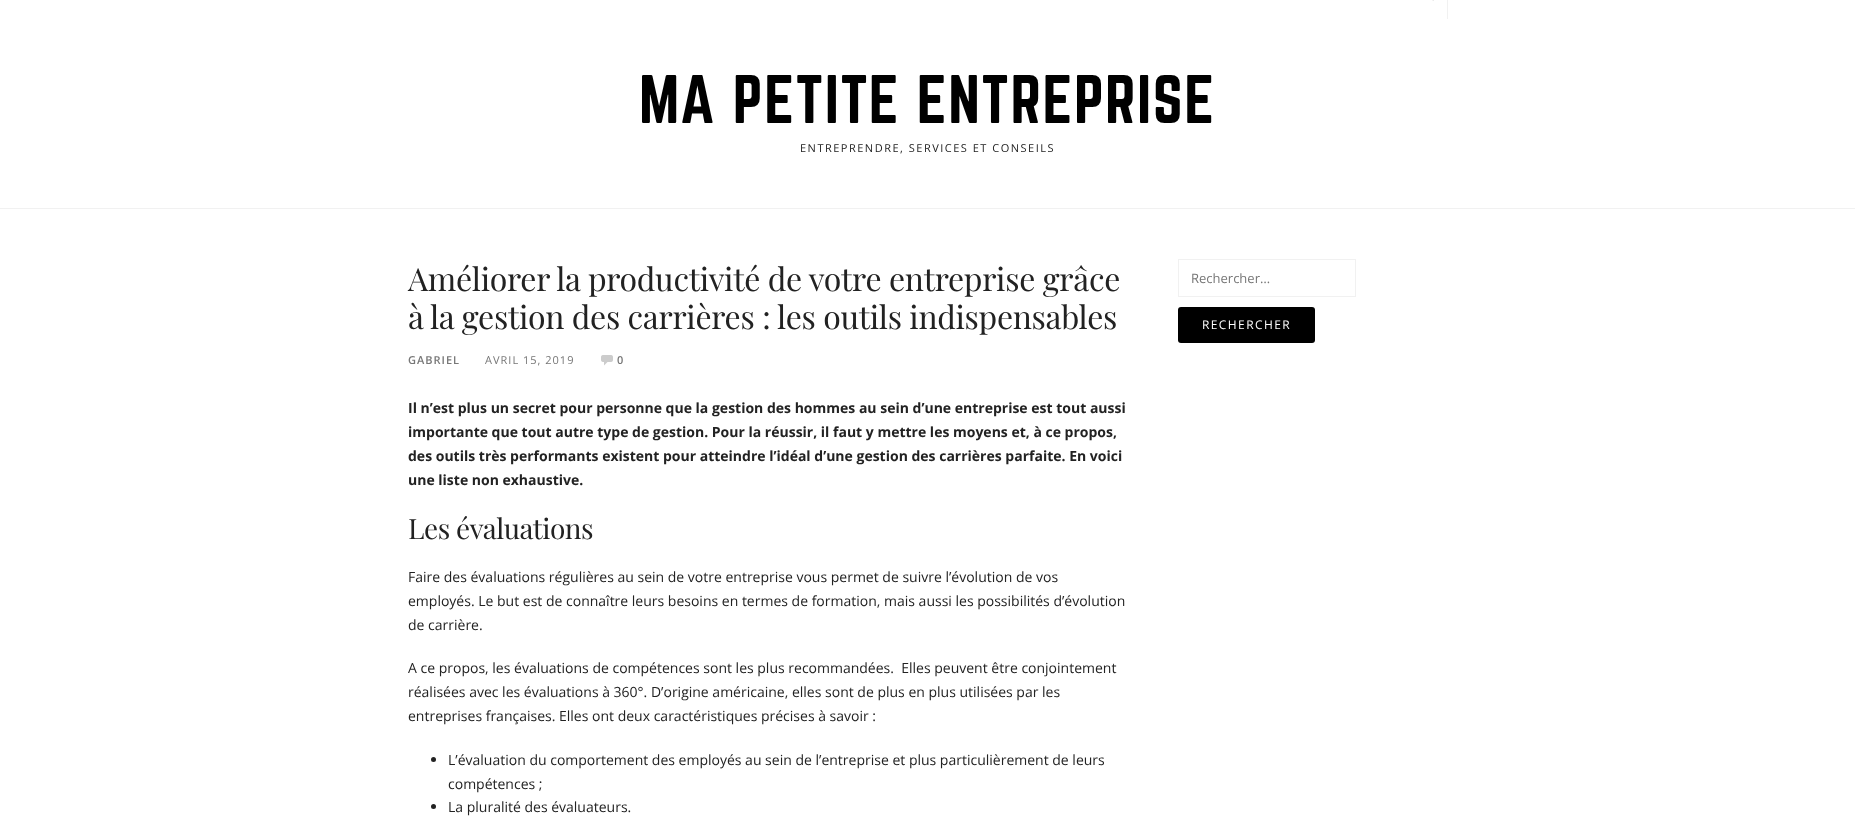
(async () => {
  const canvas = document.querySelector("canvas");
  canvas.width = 1855;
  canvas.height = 816;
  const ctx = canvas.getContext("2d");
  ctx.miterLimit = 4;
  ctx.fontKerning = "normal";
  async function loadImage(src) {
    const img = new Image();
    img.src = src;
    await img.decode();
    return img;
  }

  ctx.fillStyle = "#ffffff";
  ctx.fillRect(0, 0, 1855, 816);
  ctx.fillStyle = "#f1f1f1";
  ctx.fillRect(1447, 0, 1, 19);
  ctx.drawImage(await loadImage("img/1.png"), 1432, 0, 2, 1);
  ctx.fillRect(0, 208, 1855, 1);
  ctx.drawImage(await loadImage("img/2.png"), 601, 355, 12, 11);
  ctx.fillStyle = "#222222";
  ctx.beginPath();
  ctx.arc(433.5, 759.5, 2.5, 0, Math.PI * 2);
  ctx.fill();
  ctx.beginPath();
  ctx.arc(433.5, 806.5, 2.5, 0, Math.PI * 2);
  ctx.fill();
  ctx.strokeStyle = "#f1f1f1";
  ctx.strokeRect(1178.5, 259.5, 177, 37);
  ctx.fillStyle = "#000000";
  ctx.beginPath();
  ctx.roundRect(1178, 307, 137, 36, 3);
  ctx.fill();
  ctx.letterSpacing = "1.5px";
  ctx.font = "60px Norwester";
  ctx.fillText("MA PETITE ENTREPRISE", 639, 123);
  ctx.font = "11px Open Sans";
  ctx.fillStyle = "#222222";
  ctx.fillText("ENTREPRENDRE, SERVICES ET CONSEILS", 800, 152);
  ctx.letterSpacing = "-0.3px";
  ctx.font = "32px Playfair Display";
  ctx.fillText("Améliorer la productivité de votre entreprise grâce", 408, 291);
  ctx.fillText("à la gestion des carrières : les outils indispensables", 408, 329);
  ctx.letterSpacing = "1px";
  ctx.font = "600 11px Open Sans";
  ctx.fillStyle = "#777777";
  ctx.fillText("GABRIEL", 408, 364);
  ctx.font = "11px Open Sans";
  ctx.fillText("AVRIL 15, 2019", 485, 364);
  ctx.font = "600 11px Open Sans";
  ctx.fillText("0", 617, 364);
  ctx.letterSpacing = "0px";
  ctx.font = "bold 14px Open Sans";
  ctx.fillStyle = "#222222";
  for (const [text, x, y] of [
    ["Il n’est plus un secret pour personne que la gestion des hommes au sein d’une entreprise est tout aussi", 408, 413],
    ["importante que tout autre type de gestion. Pour la réussir, il faut y mettre les moyens et, à ce propos,", 408, 437],
    ["des outils très performants existent pour atteindre l’idéal d’une gestion des carrières parfaite. En voici", 408, 461],
    ["une liste non exhaustive.", 408, 485],
  ]) {
    ctx.fillText(text, x, y);
  }
  ctx.letterSpacing = "-0.5px";
  ctx.font = "28px Playfair Display";
  ctx.fillText("Les évaluations", 408, 539);
  ctx.letterSpacing = "0px";
  ctx.font = "14px Open Sans";
  for (const [text, x, y] of [
    ["Faire des évaluations régulières au sein de votre entreprise vous permet de suivre l’évolution de vos", 408, 582],
    ["employés. Le but est de connaître leurs besoins en termes de formation, mais aussi les possibilités d’évolution", 408, 606],
    ["de carrière.", 408, 630],
    ["A ce propos, les évaluations de compétences sont les plus recommandées.  Elles peuvent être conjointement", 408, 673],
    ["réalisées avec les évaluations à 360°. D’origine américaine, elles sont de plus en plus utilisées par les", 408, 697],
    ["entreprises françaises. Elles ont deux caractéristiques précises à savoir :", 408, 721],
    ["L’évaluation du comportement des employés au sein de l’entreprise et plus particulièrement de leurs", 448, 765],
    ["compétences ;", 448, 789],
    ["La pluralité des évaluateurs.", 448, 812],
  ]) {
    ctx.fillText(text, x, y);
  }
  ctx.font = "13px Open Sans";
  ctx.fillStyle = "#777777";
  ctx.fillText("Rechercher…", 1191, 283);
  ctx.letterSpacing = "1.4px";
  ctx.font = "12px Open Sans";
  ctx.fillStyle = "#ffffff";
  ctx.fillText("RECHERCHER", 1202, 329);
})();
